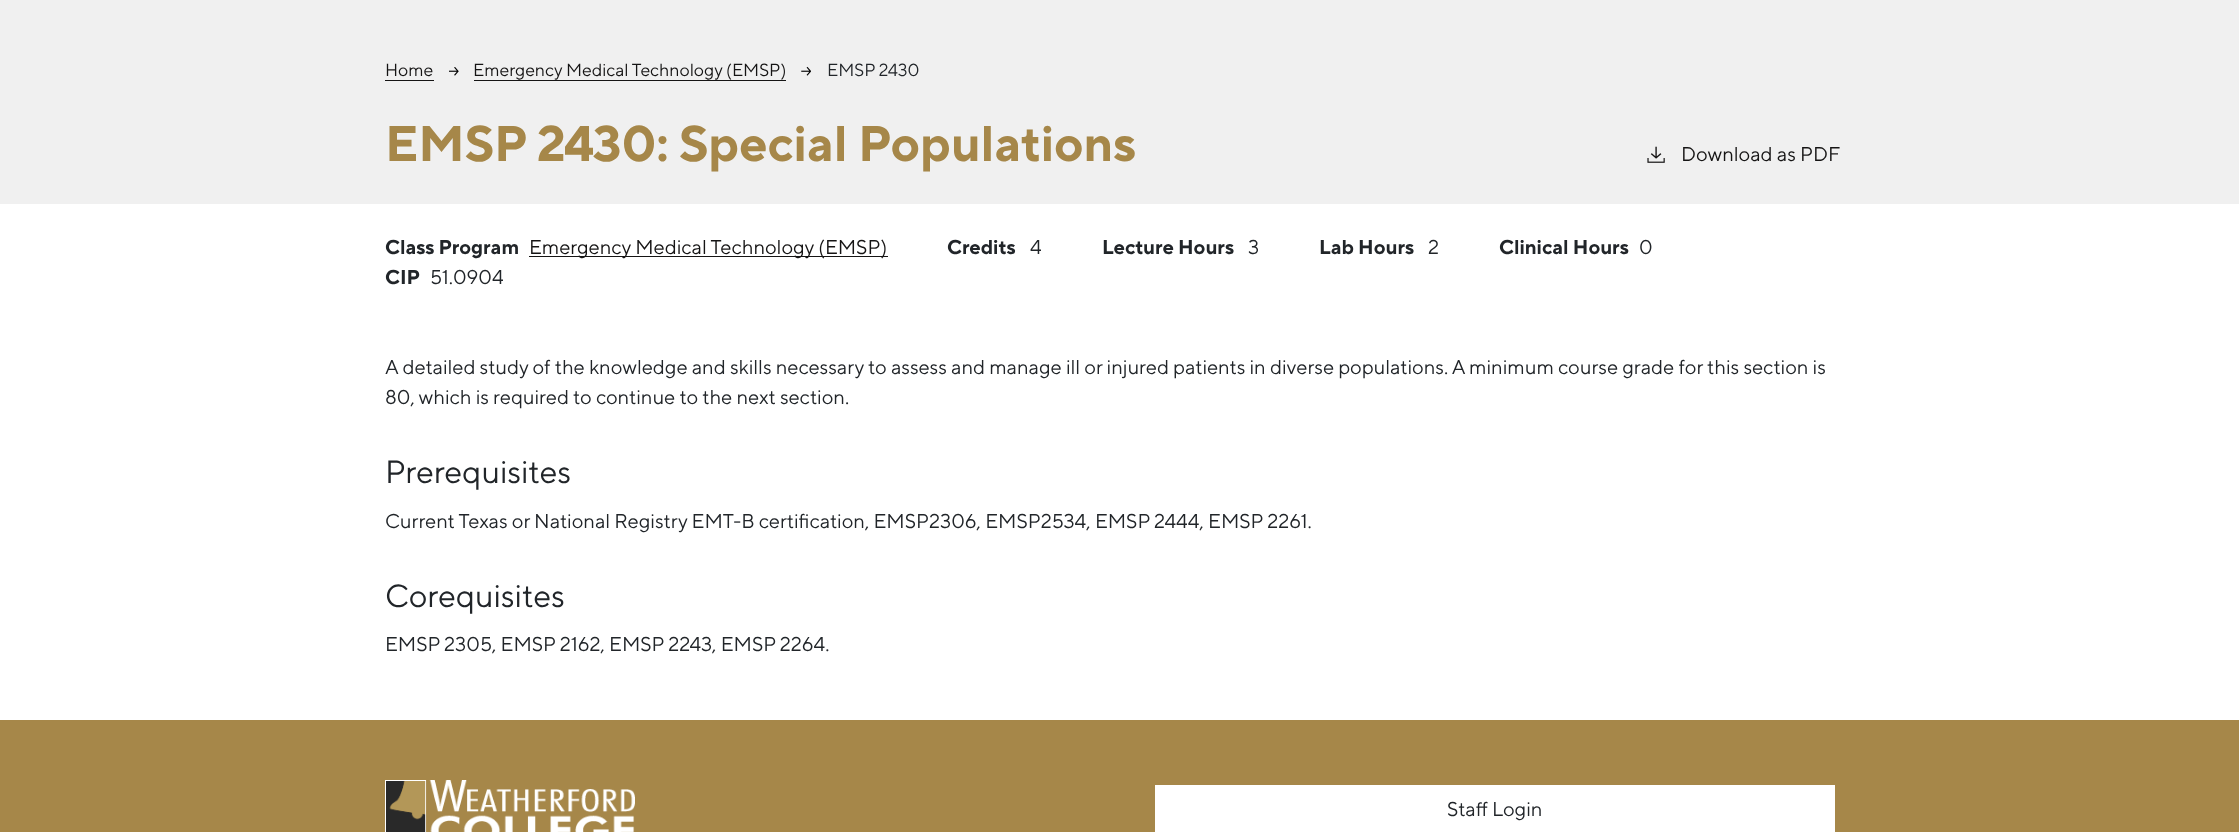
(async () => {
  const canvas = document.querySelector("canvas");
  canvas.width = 2239;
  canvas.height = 832;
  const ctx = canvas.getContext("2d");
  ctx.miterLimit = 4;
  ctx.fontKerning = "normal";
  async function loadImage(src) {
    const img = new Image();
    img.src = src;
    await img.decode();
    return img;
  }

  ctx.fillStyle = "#ffffff";
  ctx.fillRect(0, 0, 2239, 832);
  ctx.fillStyle = "#f0f0f0";
  ctx.fillRect(0, 0, 2239, 204);
  ctx.fillStyle = "#151414";
  ctx.fillRect(385, 80, 49, 1);
  ctx.drawImage(await loadImage("img/1.png"), 449, 67, 10, 9);
  ctx.fillRect(474, 80, 312, 1);
  ctx.drawImage(await loadImage("img/2.png"), 801, 66, 10, 10);
  ctx.drawImage(await loadImage("img/3.png"), 1647, 146, 18, 17);
  ctx.fillRect(529, 256, 359, 1);
  ctx.fillStyle = "#a68749";
  ctx.fillRect(0, 720, 2239, 112);
  ctx.drawImage(await loadImage("img/4.png"), 385, 780, 250, 52);
  ctx.fillStyle = "#ffffff";
  ctx.fillRect(1155, 785, 680, 47);
  ctx.font = "17.5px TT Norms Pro";
  ctx.fillStyle = "#151414";
  ctx.fillText("Home", 385, 76);
  ctx.fillText("Emergency Medical Technology (EMSP)", 473, 76);
  ctx.fillStyle = "#212529";
  ctx.fillText("EMSP 2430", 827, 76);
  ctx.font = "bold 50px TT Norms Pro";
  ctx.fillStyle = "#a68749";
  ctx.fillText("EMSP 2430: Special Populations", 385, 161);
  ctx.font = "20px TT Norms Pro";
  ctx.fillStyle = "#151414";
  ctx.fillText("Download as PDF", 1681, 161);
  ctx.font = "bold 20px TT Norms Pro";
  ctx.fillStyle = "#212529";
  ctx.fillText("Class Program", 385, 254);
  ctx.font = "20px TT Norms Pro";
  ctx.fillStyle = "#151414";
  ctx.fillText("Emergency Medical Technology (EMSP)", 529, 254);
  ctx.font = "bold 20px TT Norms Pro";
  ctx.fillStyle = "#212529";
  ctx.fillText("Credits", 947, 254);
  ctx.font = "20px TT Norms Pro";
  ctx.fillText("4", 1030, 254);
  ctx.font = "bold 20px TT Norms Pro";
  ctx.fillText("Lecture Hours", 1102, 254);
  ctx.font = "20px TT Norms Pro";
  ctx.fillText("3", 1248, 254);
  ctx.font = "bold 20px TT Norms Pro";
  ctx.fillText("Lab Hours", 1319, 254);
  ctx.font = "20px TT Norms Pro";
  ctx.fillText("2", 1428, 254);
  ctx.font = "bold 20px TT Norms Pro";
  ctx.fillText("Clinical Hours", 1499, 254);
  ctx.font = "20px TT Norms Pro";
  ctx.fillText("0", 1639, 254);
  ctx.font = "bold 20px TT Norms Pro";
  ctx.fillText("CIP", 385, 284);
  ctx.font = "20px TT Norms Pro";
  for (const [text, x, y] of [
    ["51.0904", 430, 284],
    ["A detailed study of the knowledge and skills necessary to assess and manage ill or injured patients in diverse populations. A minimum course grade for this section is", 385, 374],
    ["80, which is required to continue to the next section.", 385, 404],
  ]) {
    ctx.fillText(text, x, y);
  }
  ctx.font = "32px TT Norms Pro";
  ctx.fillText("Prerequisites", 385, 483);
  ctx.font = "20px TT Norms Pro";
  ctx.fillText("Current Texas or National Registry EMT-B certification, EMSP2306, EMSP2534, EMSP 2444, EMSP 2261.", 385, 528);
  ctx.font = "32px TT Norms Pro";
  ctx.fillText("Corequisites", 385, 607);
  ctx.font = "20px TT Norms Pro";
  ctx.fillText("EMSP 2305, EMSP 2162, EMSP 2243, EMSP 2264.", 385, 651);
  ctx.fillText("Staff Login", 1447, 816);
})();
